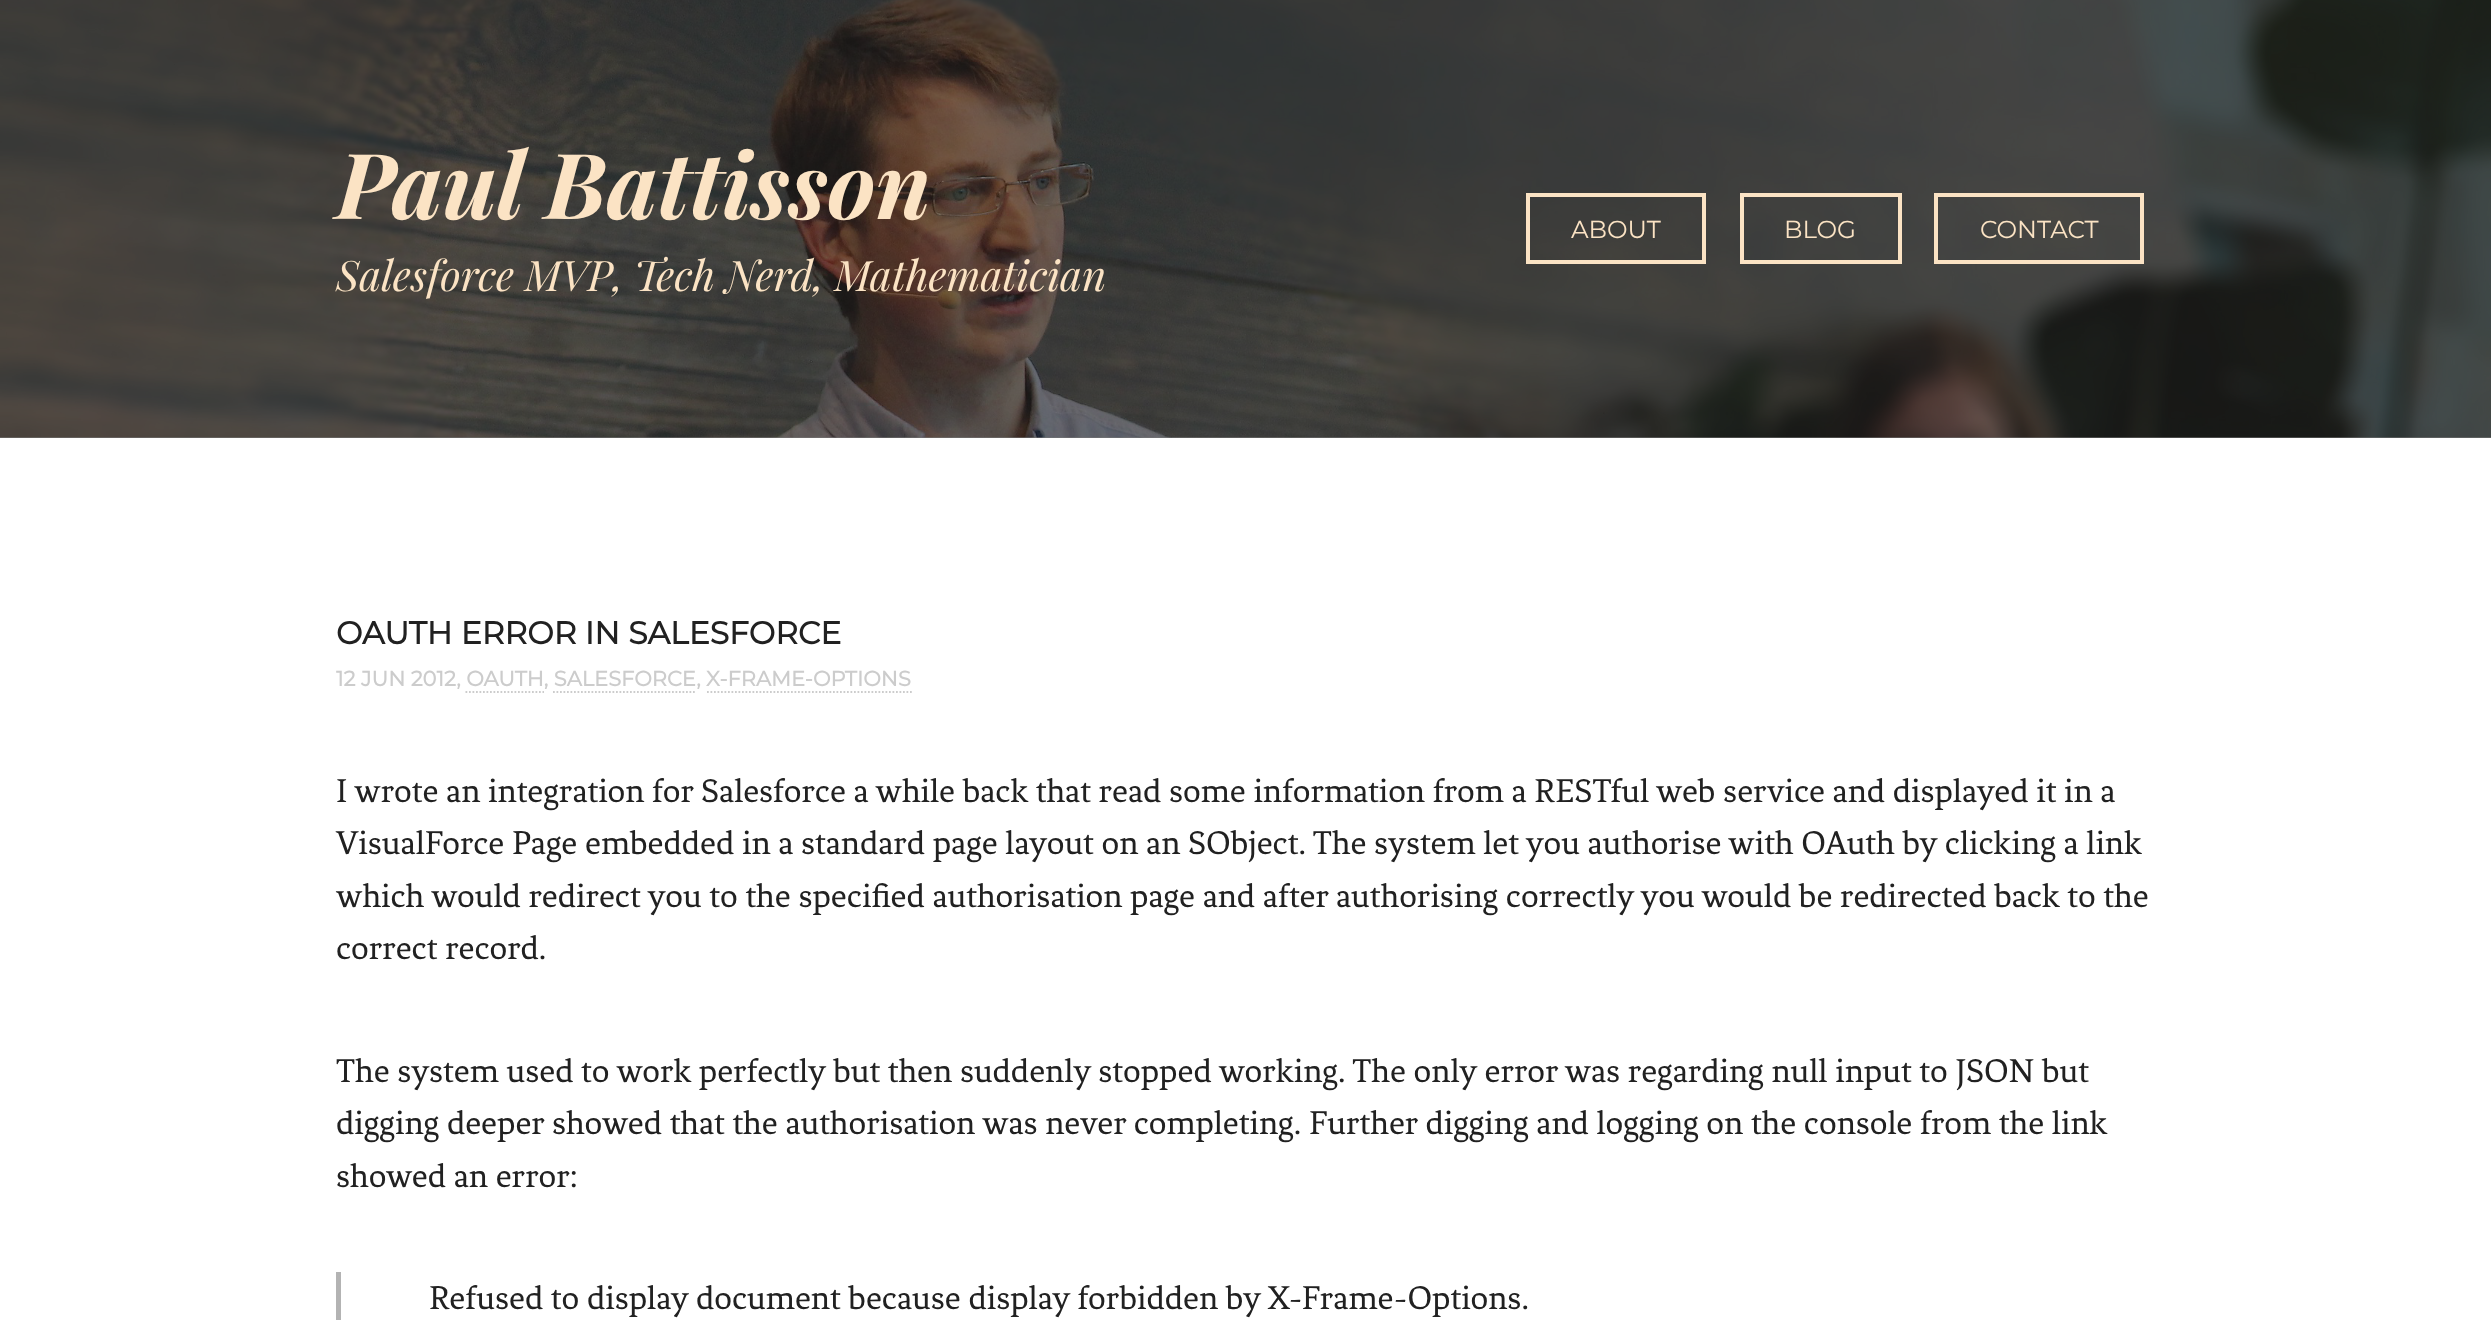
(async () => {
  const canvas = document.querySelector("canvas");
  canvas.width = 2491;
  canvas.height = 1320;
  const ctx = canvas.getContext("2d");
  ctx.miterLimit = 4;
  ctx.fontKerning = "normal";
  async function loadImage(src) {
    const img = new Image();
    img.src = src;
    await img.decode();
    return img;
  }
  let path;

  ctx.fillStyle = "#ffffff";
  ctx.fillRect(0, 0, 2491, 1320);
  ctx.fillStyle = "#7a7a7a";
  ctx.fillRect(0, 437, 2491, 1);
  ctx.drawImage(await loadImage("img/1.png"), 0, 0, 2491, 438);
  ctx.strokeStyle = "#fbe3c4";
  ctx.lineWidth = 4;
  ctx.strokeRect(1528, 195, 176, 67);
  ctx.strokeRect(1742, 195, 158, 67);
  ctx.strokeRect(1936, 195, 206, 67);
  path = new Path2D("M465.5 692H544");
  ctx.strokeStyle = "#cccccc";
  ctx.lineWidth = 1.8;
  ctx.setLineDash([1.75, 1.75]);
  ctx.stroke(path);
  path = new Path2D("M553 692H696.5");
  ctx.stroke(path);
  path = new Path2D("M707 692H912");
  ctx.stroke(path);
  ctx.fillStyle = "#b3b3b3";
  ctx.fillRect(336, 1272, 5, 48);
  ctx.font = "italic bold 91px Playfair Display";
  ctx.fillStyle = "#fbe3c4";
  ctx.fillText("Paul Battisson", 336, 219);
  ctx.font = "italic 42px Playfair Display";
  ctx.fillText("Salesforce MVP, Tech Nerd, Mathematician", 336, 291);
  ctx.font = "100 24.5px Montserrat";
  for (const [text, x, y] of [
    ["ABOUT", 1571, 238],
    ["BLOG", 1784, 238],
    ["CONTACT", 1980, 238],
  ]) {
    ctx.fillText(text, x, y);
  }
  ctx.font = "bold 31.5px Montserrat";
  ctx.fillStyle = "#212121";
  ctx.fillText("OAUTH ERROR IN SALESFORCE", 336, 644);
  ctx.font = "bold 21px Montserrat";
  ctx.fillStyle = "#cccccc";
  ctx.fillText("12 JUN 2012, OAUTH, SALESFORCE, X-FRAME-OPTIONS", 336, 686);
  ctx.font = "35px Fenix";
  ctx.fillStyle = "#212121";
  for (const [text, x, y] of [
    ["I wrote an integration for Salesforce a while back that read some information from a RESTful web service and displayed it in a", 336, 802],
    ["VisualForce Page embedded in a standard page layout on an SObject. The system let you authorise with OAuth by clicking a link", 336, 854],
    ["which would redirect you to the specified authorisation page and after authorising correctly you would be redirected back to the", 336, 907],
    ["correct record.", 336, 959],
    ["The system used to work perfectly but then suddenly stopped working. The only error was regarding null input to JSON but", 336, 1082],
    ["digging deeper showed that the authorisation was never completing. Further digging and logging on the console from the link", 336, 1134],
    ["showed an error:", 336, 1187],
    ["Refused to display document because display forbidden by X-Frame-Options.", 429, 1309],
  ]) {
    ctx.fillText(text, x, y);
  }
})();
